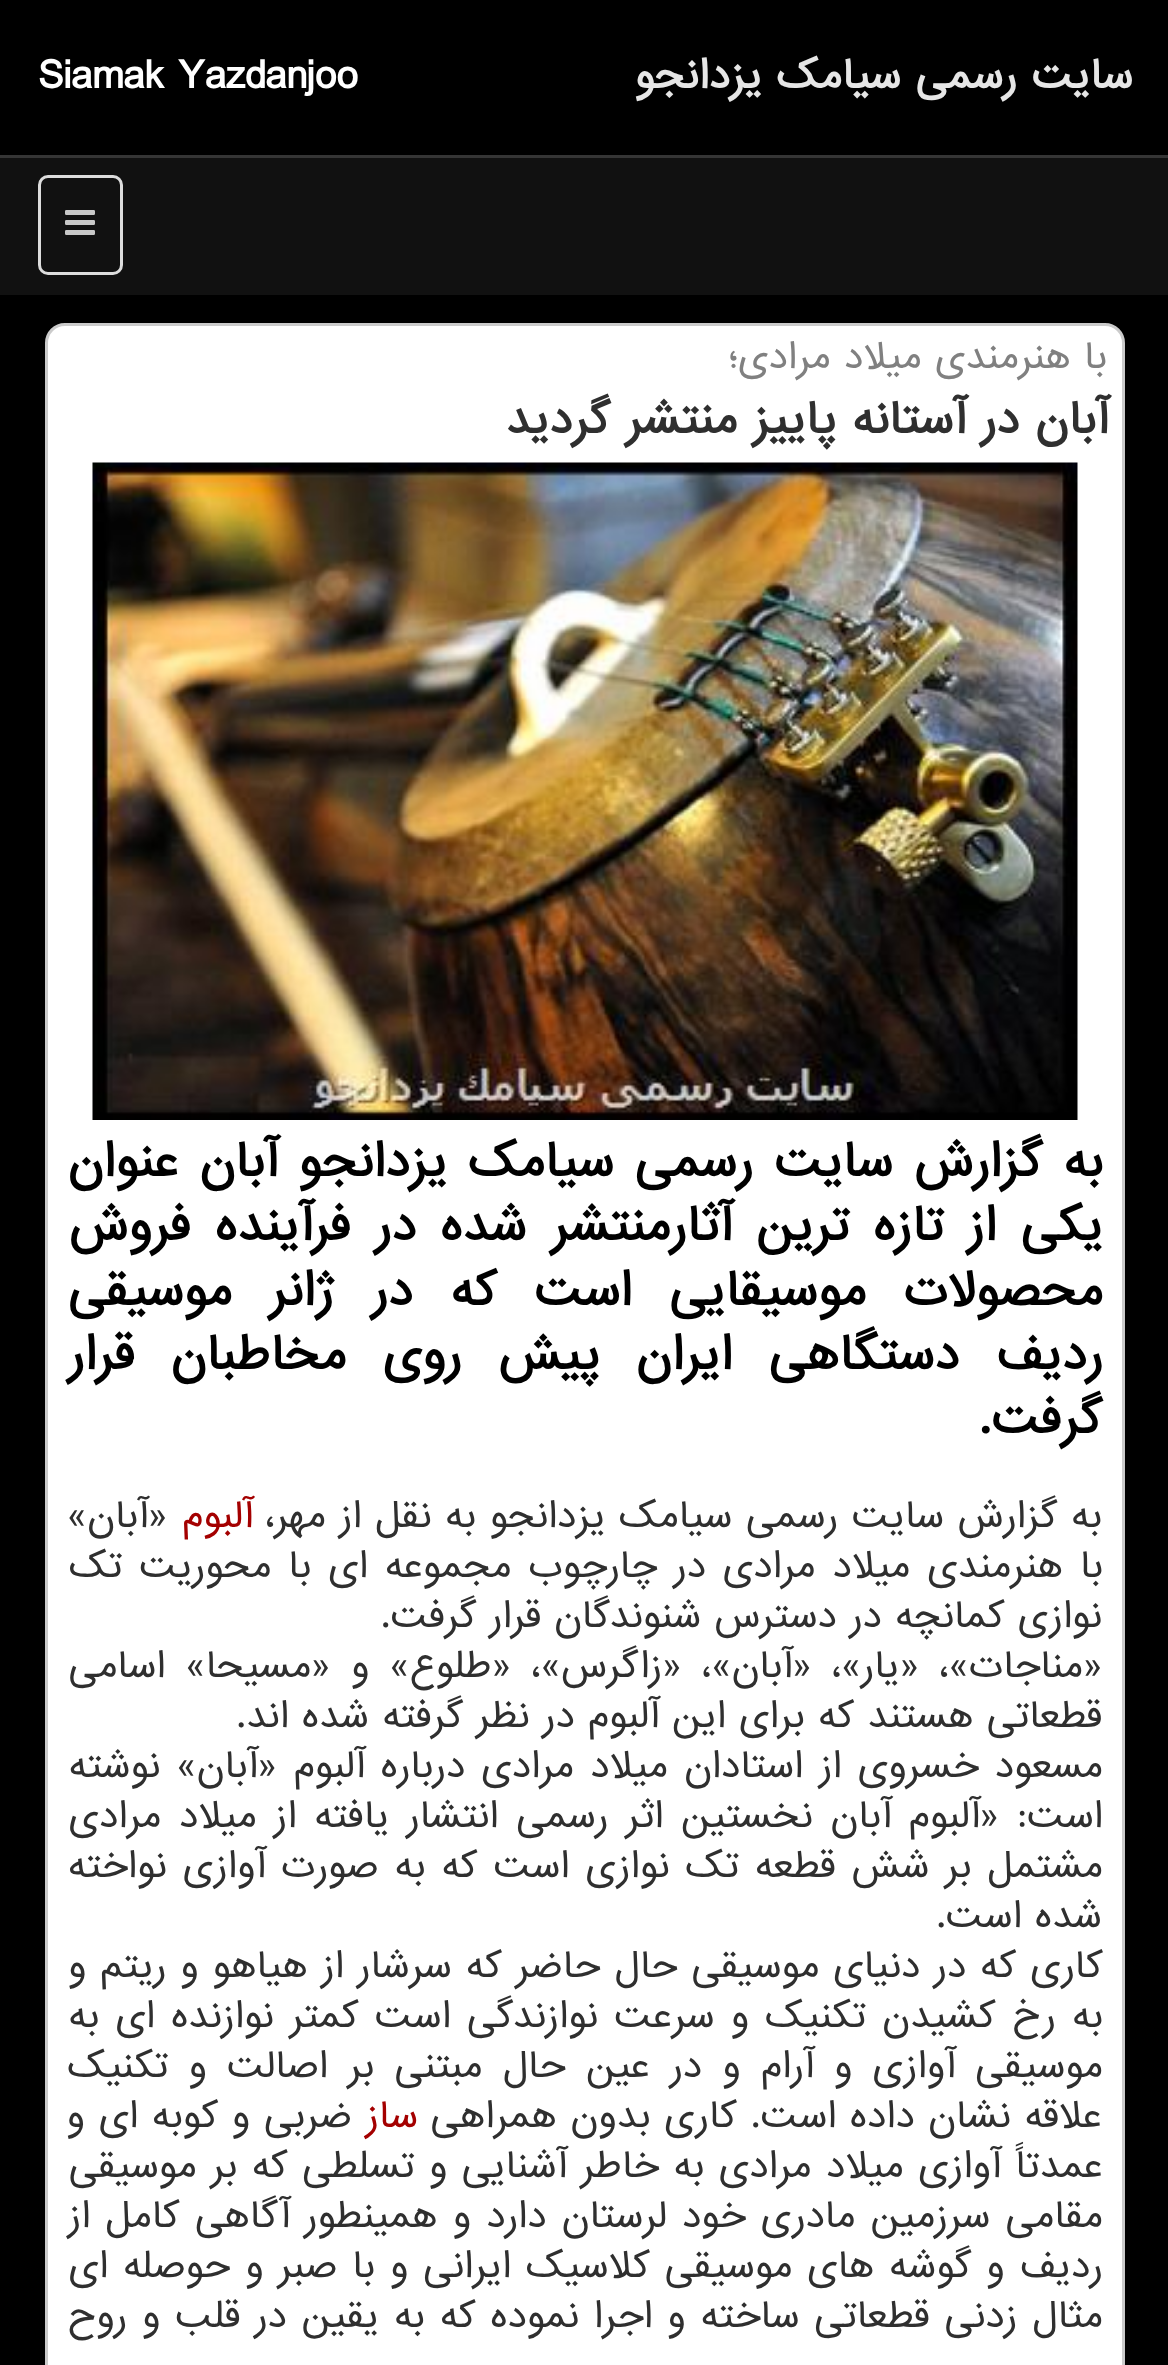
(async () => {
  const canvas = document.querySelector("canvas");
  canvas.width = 1168;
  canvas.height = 2365;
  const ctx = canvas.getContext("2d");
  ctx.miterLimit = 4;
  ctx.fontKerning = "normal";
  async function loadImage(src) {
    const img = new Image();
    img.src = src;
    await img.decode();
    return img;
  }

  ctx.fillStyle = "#000000";
  ctx.fillRect(0, 0, 1168, 2365);
  ctx.fillStyle = "#111111";
  ctx.fillRect(0, 158, 1168, 137);
  ctx.fillStyle = "#353535";
  ctx.fillRect(0, 155, 1168, 3);
  ctx.beginPath();
  ctx.roundRect(39.5, 176.5, 82, 97, 8.5);
  ctx.strokeStyle = "#dddddd";
  ctx.lineWidth = 3;
  ctx.stroke();
  ctx.drawImage(await loadImage("img/1.png"), 65, 210, 30, 25);
  ctx.fillStyle = "#ffffff";
  ctx.beginPath();
  ctx.roundRect(46.5, 324.5, 1077, 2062, 18.5);
  ctx.fill();
  ctx.strokeStyle = "#cbcbcb";
  ctx.stroke();
  ctx.drawImage(await loadImage("img/2.png"), 92, 462, 986, 658);
  ctx.direction = "rtl";
  ctx.font = "bold 38.5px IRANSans";
  ctx.fillStyle = "#e6e6e6";
  ctx.fillText("سایت رسمی سیامك یزدانجو", 1133, 88);
  ctx.direction = "ltr";
  ctx.fillStyle = "#ffffff";
  ctx.fillText("Siamak Yazdanjoo", 38, 88);
  ctx.direction = "rtl";
  ctx.font = "35px IRANSans";
  ctx.fillStyle = "#808080";
  ctx.fillText("با هنرمندی میلاد مرادی؛", 1107, 368);
  ctx.font = "bold 42px IRANSans";
  ctx.fillStyle = "#2f2f2f";
  ctx.fillText("آبان در آستانه پاییز منتشر گردید", 1108, 433);
  ctx.wordSpacing = "4px";
  ctx.font = "bold 45px IRANSans";
  ctx.fillStyle = "#000000";
  ctx.fillText("به گزارش سایت رسمی سیامك یزدانجو آبان عنوان", 1103, 1176);
  ctx.wordSpacing = "7.5px";
  ctx.fillText("یكی از تازه ترین آثارمنتشر شده در فرآینده فروش", 1103, 1240);
  ctx.wordSpacing = "20.5px";
  ctx.fillText("محصولات موسیقایی است كه در ژانر موسیقی", 1103, 1305);
  ctx.wordSpacing = "19.5px";
  ctx.fillText("ردیف دستگاهی ایران پیش روی مخاطبان قرار", 1103, 1369);
  ctx.wordSpacing = "0px";
  ctx.fillText("گرفت.", 1102, 1433);
  ctx.wordSpacing = "0.4px";
  ctx.font = "35px IRANSans";
  ctx.fillStyle = "#2f2f2f";
  ctx.fillText("به گزارش سایت رسمی سیامک یزدانجو به نقل از مهر،", 1102, 1527);
  ctx.wordSpacing = "0px";
  ctx.fillStyle = "#a40000";
  ctx.fillText("آلبوم", 253, 1527);
  ctx.fillStyle = "#2f2f2f";
  ctx.fillText("«آبان»", 168, 1527);
  ctx.wordSpacing = "3.75px";
  ctx.fillText("با هنرمندی میلاد مرادی در چارچوب مجموعه ای با محوریت تک", 1103, 1577);
  ctx.wordSpacing = "0px";
  ctx.fillText("نوازی کمانچه در دسترس شنوندگان قرار گرفت.", 1102, 1627);
  ctx.wordSpacing = "6.75px";
  ctx.fillText("«مناجات»، «یار»، «آبان»، «زاگرس»، «طلوع» و «مسیحا» اسامی", 1103, 1677);
  ctx.wordSpacing = "0px";
  ctx.fillText("قطعاتی هستند که برای این آلبوم در نظر گرفته شده اند.", 1102, 1727);
  ctx.wordSpacing = "3px";
  ctx.fillText("مسعود خسروی از استادان میلاد مرادی درباره آلبوم «آبان» نوشته", 1103, 1777);
  ctx.wordSpacing = "4.5px";
  ctx.fillText("است: «آلبوم آبان نخستین اثر رسمی انتشار یافته از میلاد مرادی", 1103, 1827);
  ctx.wordSpacing = "2.75px";
  ctx.fillText("مشتمل بر شش قطعه تک نوازی است که به صورت آوازی نواخته", 1103, 1877);
  ctx.wordSpacing = "0px";
  ctx.fillText("شده است.", 1102, 1927);
  ctx.wordSpacing = "0.75px";
  ctx.fillText("کاری که در دنیای موسیقی حال حاضر که سرشار از هیاهو و ریتم و", 1103, 1977);
  ctx.wordSpacing = "3px";
  ctx.fillText("به رخ کشیدن تکنیک و سرعت نوازندگی است کمتر نوازنده ای به", 1103, 2027);
  ctx.wordSpacing = "7px";
  ctx.fillText("موسیقی آوازی و آرام و در عین حال مبتنی بر اصالت و تکنیک", 1103, 2077);
  ctx.wordSpacing = "0.5px";
  ctx.fillText("علاقه نشان داده است. کاری بدون همراهی", 1102, 2127);
  ctx.wordSpacing = "0px";
  ctx.fillStyle = "#a40000";
  ctx.fillText("ساز", 418, 2127);
  ctx.wordSpacing = "0.5px";
  ctx.fillStyle = "#2f2f2f";
  ctx.fillText("ضربی و کوبه ای و", 352, 2127);
  ctx.wordSpacing = "1.25px";
  ctx.fillText("عمدتاً آوازی میلاد مرادی به خاطر آشنایی و تسلطی که بر موسیقی", 1103, 2177);
  ctx.wordSpacing = "2px";
  ctx.fillText("مقامی سرزمین مادری خود لرستان دارد و همینطور آگاهی کامل از", 1103, 2227);
  ctx.wordSpacing = "1.6px";
  ctx.fillText("ردیف و گوشه های موسیقی کلاسیک ایرانی و با صبر و حوصله ای", 1103, 2277);
  ctx.fillText("مثال زدنی قطعاتی ساخته و اجرا نموده که به یقین در قلب و روح", 1103, 2327);
})();
